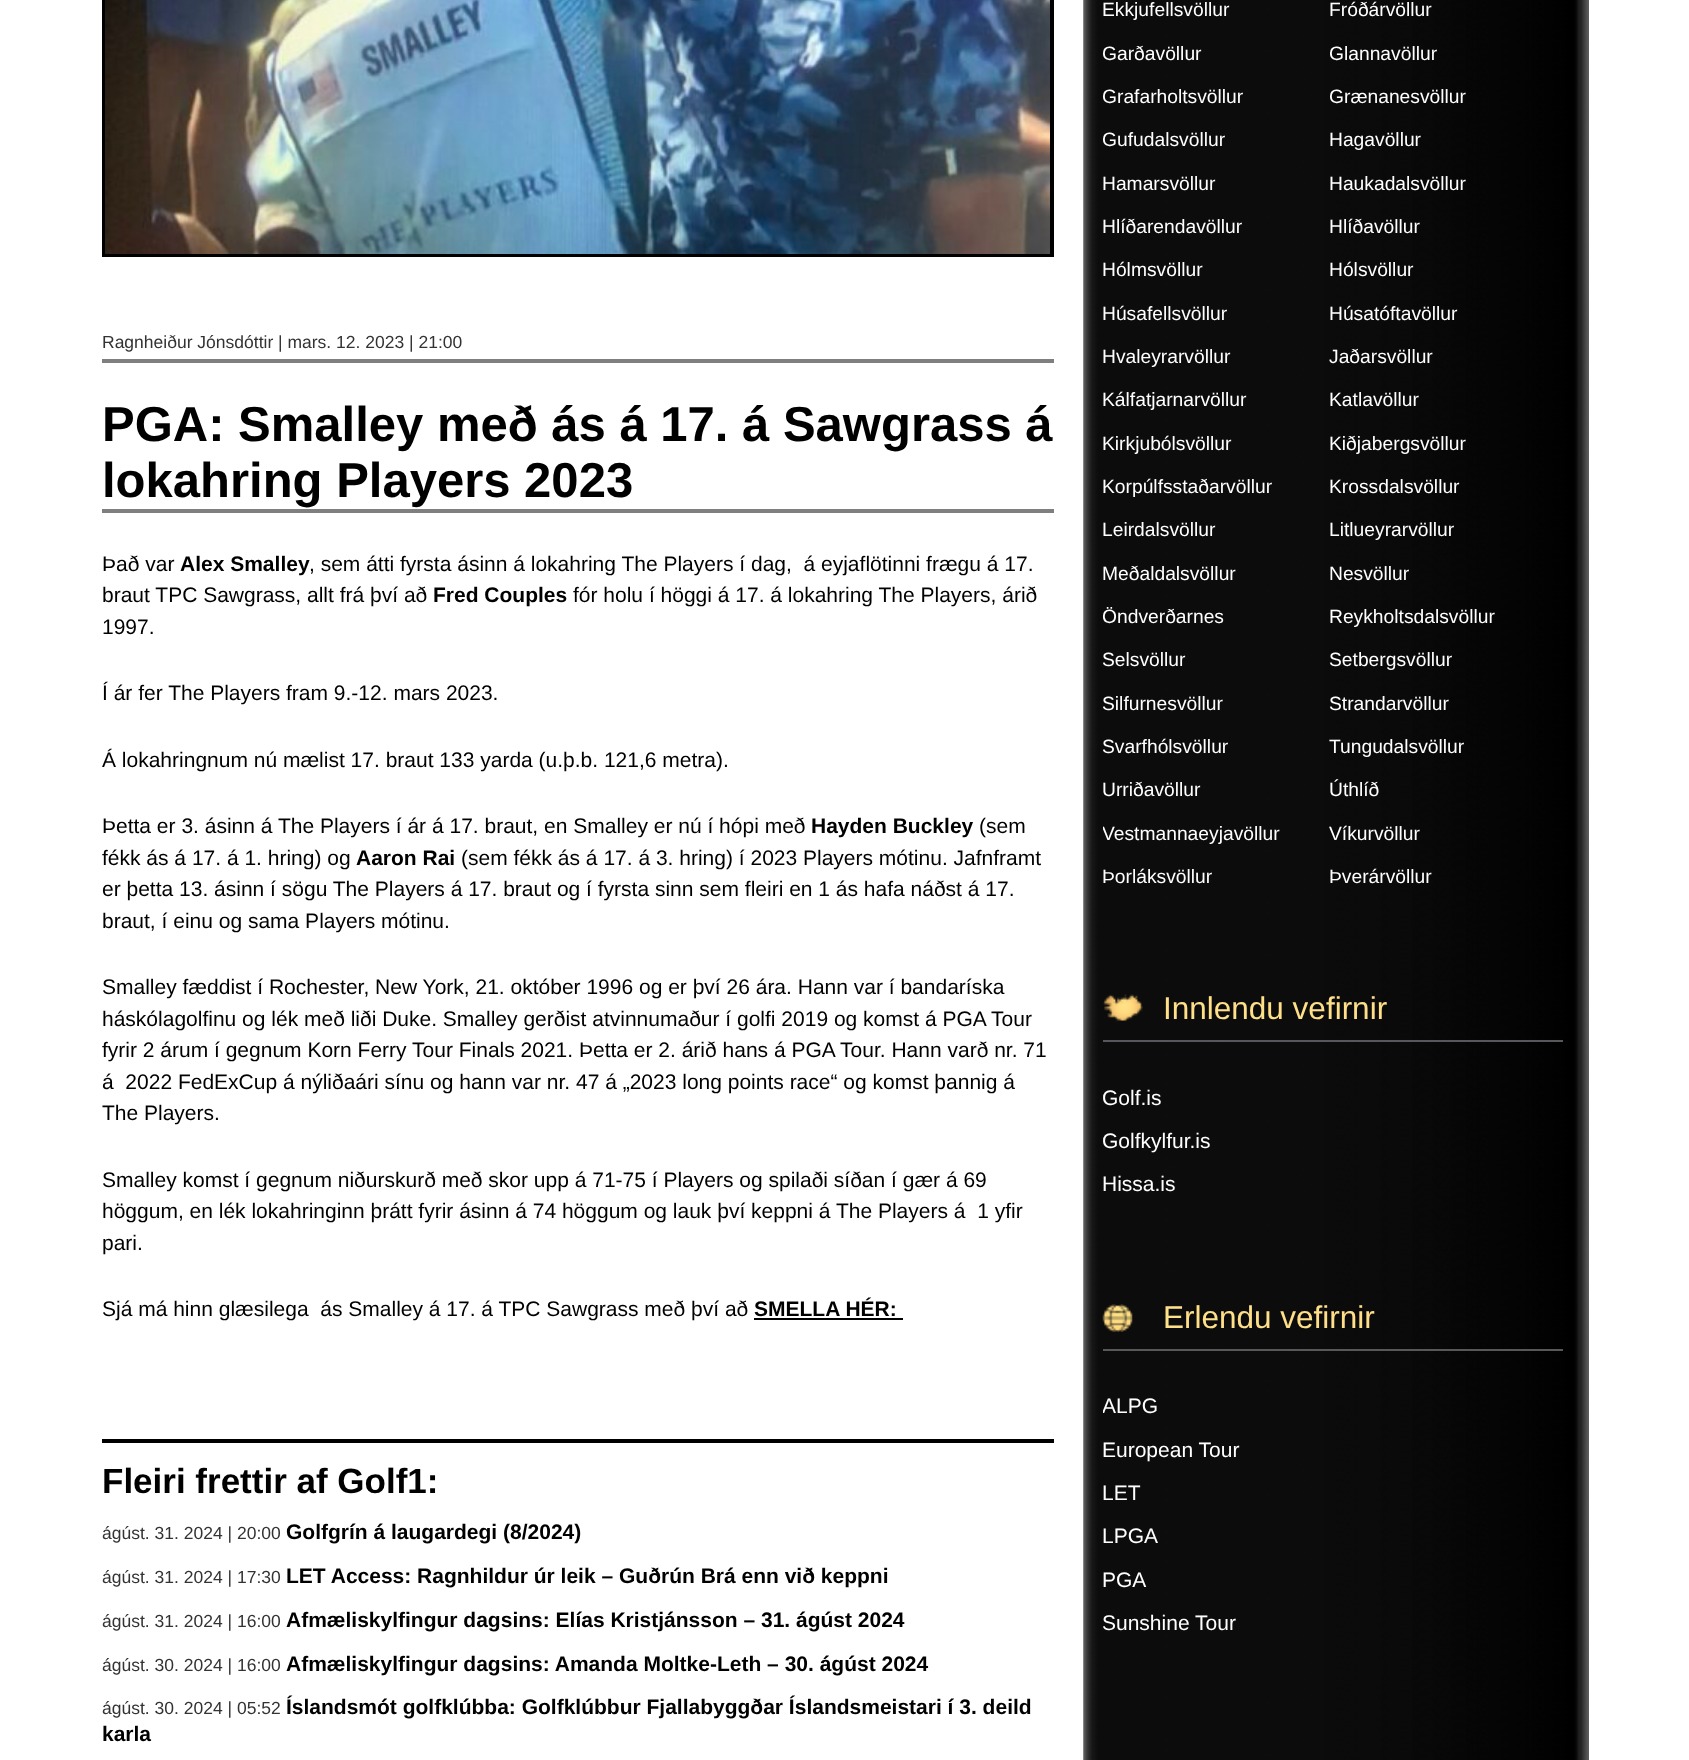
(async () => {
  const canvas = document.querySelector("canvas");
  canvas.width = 1689;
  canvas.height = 1760;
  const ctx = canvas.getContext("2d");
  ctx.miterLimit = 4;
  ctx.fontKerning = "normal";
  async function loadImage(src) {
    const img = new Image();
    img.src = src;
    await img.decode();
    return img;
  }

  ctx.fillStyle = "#ffffff";
  ctx.fillRect(0, 0, 1689, 1760);
  ctx.drawImage(await loadImage("img/1.png"), 1083, 0, 506, 1760);
  ctx.fillStyle = "#000000";
  ctx.fillRect(102, 0, 952, 257);
  ctx.drawImage(await loadImage("img/2.png"), 105, 0, 945, 254);
  for (const [x, y, w, h, color] of [
    [102, 359, 952, 4, "#7f7f7f"],
    [102, 509, 952, 4, "#7f7f7f"],
    [754, 1318, 149, 2, "#000000"],
    [102, 1439, 952, 4, "#000000"],
  ]) {
    ctx.fillStyle = color;
    ctx.fillRect(x, y, w, h);
  }
  ctx.drawImage(await loadImage("img/3.png"), 1103, 994, 40, 28);
  ctx.fillStyle = "#57585b";
  ctx.fillRect(1103, 1040, 460, 2);
  ctx.drawImage(await loadImage("img/4.png"), 1102, 1304, 31, 28);
  ctx.fillRect(1103, 1349, 460, 2);
  ctx.font = "17.5px Liberation Sans";
  ctx.fillStyle = "#333333";
  ctx.fillText("Ragnheiður Jónsdóttir | mars. 12. 2023 | 21:00", 102, 348);
  ctx.font = "bold 49px Liberation Sans";
  ctx.fillStyle = "#000000";
  ctx.fillText("PGA: Smalley með ás á 17. á Sawgrass á", 102, 441);
  ctx.fillText("lokahring Players 2023", 102, 497);
  ctx.font = "21px Liberation Sans";
  ctx.fillText("Það var", 102, 571);
  ctx.font = "bold 21px Liberation Sans";
  ctx.fillText("Alex Smalley", 180, 571);
  ctx.font = "21px Liberation Sans";
  ctx.fillText(", sem átti fyrsta ásinn á lokahring The Players í dag,  á eyjaflötinni frægu á 17.", 309, 571);
  ctx.fillText("braut TPC Sawgrass, allt frá því að", 102, 602);
  ctx.font = "bold 21px Liberation Sans";
  ctx.fillText("Fred Couples", 433, 602);
  ctx.font = "21px Liberation Sans";
  for (const [text, x, y] of [
    ["fór holu í höggi á 17. á lokahring The Players, árið", 573, 602],
    ["1997.", 102, 634],
    ["Í ár fer The Players fram 9.-12. mars 2023.", 102, 700],
    ["Á lokahringnum nú mælist 17. braut 133 yarda (u.þ.b. 121,6 metra).", 102, 767],
    ["Þetta er 3. ásinn á The Players í ár á 17. braut, en Smalley er nú í hópi með", 102, 833],
  ]) {
    ctx.fillText(text, x, y);
  }
  ctx.font = "bold 21px Liberation Sans";
  ctx.fillText("Hayden Buckley", 811, 833);
  ctx.font = "21px Liberation Sans";
  ctx.fillText("(sem", 979, 833);
  ctx.fillText("fékk ás á 17. á 1. hring) og", 102, 865);
  ctx.font = "bold 21px Liberation Sans";
  ctx.fillText("Aaron Rai", 356, 865);
  ctx.font = "21px Liberation Sans";
  for (const [text, x, y] of [
    ["(sem fékk ás á 17. á 3. hring) í 2023 Players mótinu. Jafnframt", 461, 865],
    ["er þetta 13. ásinn í sögu The Players á 17. braut og í fyrsta sinn sem fleiri en 1 ás hafa náðst á 17.", 102, 896],
    ["braut, í einu og sama Players mótinu.", 102, 928],
    ["Smalley fæddist í Rochester, New York, 21. október 1996 og er því 26 ára. Hann var í bandaríska", 102, 994],
    ["háskólagolfinu og lék með liði Duke. Smalley gerðist atvinnumaður í golfi 2019 og komst á PGA Tour", 102, 1026],
    ["fyrir 2 árum í gegnum Korn Ferry Tour Finals 2021. Þetta er 2. árið hans á PGA Tour. Hann varð nr. 71", 102, 1057],
    ["á  2022 FedExCup á nýliðaári sínu og hann var nr. 47 á „2023 long points race“ og komst þannig á", 102, 1089],
    ["The Players.", 102, 1120],
    ["Smalley komst í gegnum niðurskurð með skor upp á 71-75 í Players og spilaði síðan í gær á 69", 102, 1187],
    ["höggum, en lék lokahringinn þrátt fyrir ásinn á 74 höggum og lauk því keppni á The Players á  1 yfir", 102, 1218],
    ["pari.", 102, 1250],
    ["Sjá má hinn glæsilega  ás Smalley á 17. á TPC Sawgrass með því að", 102, 1316],
  ]) {
    ctx.fillText(text, x, y);
  }
  ctx.font = "bold 21px Liberation Sans";
  ctx.fillText("SMELLA HÉR:", 754, 1316);
  ctx.font = "bold 35px Liberation Sans";
  ctx.fillText("Fleiri frettir af Golf1:", 102, 1493);
  ctx.font = "17.5px Liberation Sans";
  ctx.fillStyle = "#333333";
  ctx.fillText("ágúst. 31. 2024 | 20:00", 102, 1539);
  ctx.font = "bold 21px Liberation Sans";
  ctx.fillStyle = "#000000";
  ctx.fillText("Golfgrín á laugardegi (8/2024)", 286, 1539);
  ctx.font = "17.5px Liberation Sans";
  ctx.fillStyle = "#333333";
  ctx.fillText("ágúst. 31. 2024 | 17:30", 102, 1583);
  ctx.font = "bold 21px Liberation Sans";
  ctx.fillStyle = "#000000";
  ctx.fillText("LET Access: Ragnhildur úr leik – Guðrún Brá enn við keppni", 286, 1583);
  ctx.font = "17.5px Liberation Sans";
  ctx.fillStyle = "#333333";
  ctx.fillText("ágúst. 31. 2024 | 16:00", 102, 1627);
  ctx.font = "bold 21px Liberation Sans";
  ctx.fillStyle = "#000000";
  ctx.fillText("Afmæliskylfingur dagsins: Elías Kristjánsson – 31. ágúst 2024", 286, 1627);
  ctx.font = "17.5px Liberation Sans";
  ctx.fillStyle = "#333333";
  ctx.fillText("ágúst. 30. 2024 | 16:00", 102, 1671);
  ctx.font = "bold 21px Liberation Sans";
  ctx.fillStyle = "#000000";
  ctx.fillText("Afmæliskylfingur dagsins: Amanda Moltke-Leth – 30. ágúst 2024", 286, 1671);
  ctx.font = "17.5px Liberation Sans";
  ctx.fillStyle = "#333333";
  ctx.fillText("ágúst. 30. 2024 | 05:52", 102, 1714);
  ctx.font = "bold 21px Liberation Sans";
  ctx.fillStyle = "#000000";
  ctx.fillText("Íslandsmót golfklúbba: Golfklúbbur Fjallabyggðar Íslandsmeistari í 3. deild", 286, 1714);
  ctx.fillText("karla", 102, 1741);
  ctx.font = "19.25px Liberation Sans";
  ctx.fillStyle = "#ffffff";
  ctx.fillText("Ekkjufellsvöllur", 1102, 16);
  ctx.fillText("Fróðárvöllur", 1329, 16);
  ctx.save();
  ctx.beginPath();
  ctx.rect(1103, 0, 460, 907);
  ctx.clip();
  ctx.fillText("Garðavöllur", 1102, 60);
  ctx.restore();
  ctx.fillText("Glannavöllur", 1329, 60);
  ctx.save();
  ctx.beginPath();
  ctx.rect(1103, 0, 460, 907);
  ctx.clip();
  ctx.fillText("Grafarholtsvöllur", 1102, 103);
  ctx.restore();
  ctx.fillText("Grænanesvöllur", 1329, 103);
  ctx.save();
  ctx.beginPath();
  ctx.rect(1103, 0, 460, 907);
  ctx.clip();
  ctx.fillText("Gufudalsvöllur", 1102, 146);
  ctx.restore();
  for (const [text, x, y] of [
    ["Hagavöllur", 1329, 146],
    ["Hamarsvöllur", 1102, 190],
    ["Haukadalsvöllur", 1329, 190],
    ["Hlíðarendavöllur", 1102, 233],
    ["Hlíðavöllur", 1329, 233],
    ["Hólmsvöllur", 1102, 276],
    ["Hólsvöllur", 1329, 276],
    ["Húsafellsvöllur", 1102, 320],
    ["Húsatóftavöllur", 1329, 320],
    ["Hvaleyrarvöllur", 1102, 363],
    ["Jaðarsvöllur", 1329, 363],
    ["Kálfatjarnarvöllur", 1102, 406],
    ["Katlavöllur", 1329, 406],
    ["Kirkjubólsvöllur", 1102, 450],
    ["Kiðjabergsvöllur", 1329, 450],
    ["Korpúlfsstaðarvöllur", 1102, 493],
    ["Krossdalsvöllur", 1329, 493],
    ["Leirdalsvöllur", 1102, 536],
    ["Litlueyrarvöllur", 1329, 536],
    ["Meðaldalsvöllur", 1102, 580],
    ["Nesvöllur", 1329, 580],
  ]) {
    ctx.fillText(text, x, y);
  }
  ctx.save();
  ctx.beginPath();
  ctx.rect(1103, 0, 460, 907);
  ctx.clip();
  ctx.fillText("Öndverðarnes", 1102, 623);
  ctx.restore();
  for (const [text, x, y] of [
    ["Reykholtsdalsvöllur", 1329, 623],
    ["Selsvöllur", 1102, 666],
    ["Setbergsvöllur", 1329, 666],
    ["Silfurnesvöllur", 1102, 710],
    ["Strandarvöllur", 1329, 710],
    ["Svarfhólsvöllur", 1102, 753],
    ["Tungudalsvöllur", 1329, 753],
    ["Urriðavöllur", 1102, 796],
    ["Úthlíð", 1329, 796],
  ]) {
    ctx.fillText(text, x, y);
  }
  ctx.save();
  ctx.beginPath();
  ctx.rect(1103, 0, 460, 907);
  ctx.clip();
  ctx.fillText("Vestmannaeyjavöllur", 1102, 840);
  ctx.restore();
  for (const [text, x, y] of [
    ["Víkurvöllur", 1329, 840],
    ["Þorláksvöllur", 1102, 883],
    ["Þverárvöllur", 1329, 883],
  ]) {
    ctx.fillText(text, x, y);
  }
  ctx.font = "31.5px Liberation Sans";
  ctx.fillStyle = "#ffe089";
  ctx.fillText("Innlendu vefirnir", 1163, 1019);
  ctx.save();
  ctx.beginPath();
  ctx.rect(1103, 977, 460, 239);
  ctx.clip();
  ctx.font = "21px Liberation Sans";
  ctx.fillStyle = "#ffffff";
  ctx.fillText("Golf.is", 1102, 1105);
  ctx.fillText("Golfkylfur.is", 1102, 1148);
  ctx.restore();
  ctx.font = "21px Liberation Sans";
  ctx.fillStyle = "#ffffff";
  ctx.fillText("Hissa.is", 1102, 1191);
  ctx.font = "31.5px Liberation Sans";
  ctx.fillStyle = "#ffe089";
  ctx.fillText("Erlendu vefirnir", 1163, 1328);
  ctx.save();
  ctx.beginPath();
  ctx.rect(1103, 1286, 460, 368);
  ctx.clip();
  ctx.font = "21px Liberation Sans";
  ctx.fillStyle = "#ffffff";
  ctx.fillText("ALPG", 1102, 1413);
  ctx.restore();
  ctx.font = "21px Liberation Sans";
  ctx.fillStyle = "#ffffff";
  for (const [text, x, y] of [
    ["European Tour", 1102, 1457],
    ["LET", 1102, 1500],
    ["LPGA", 1102, 1543],
    ["PGA", 1102, 1587],
    ["Sunshine Tour", 1102, 1630],
  ]) {
    ctx.fillText(text, x, y);
  }
})();
